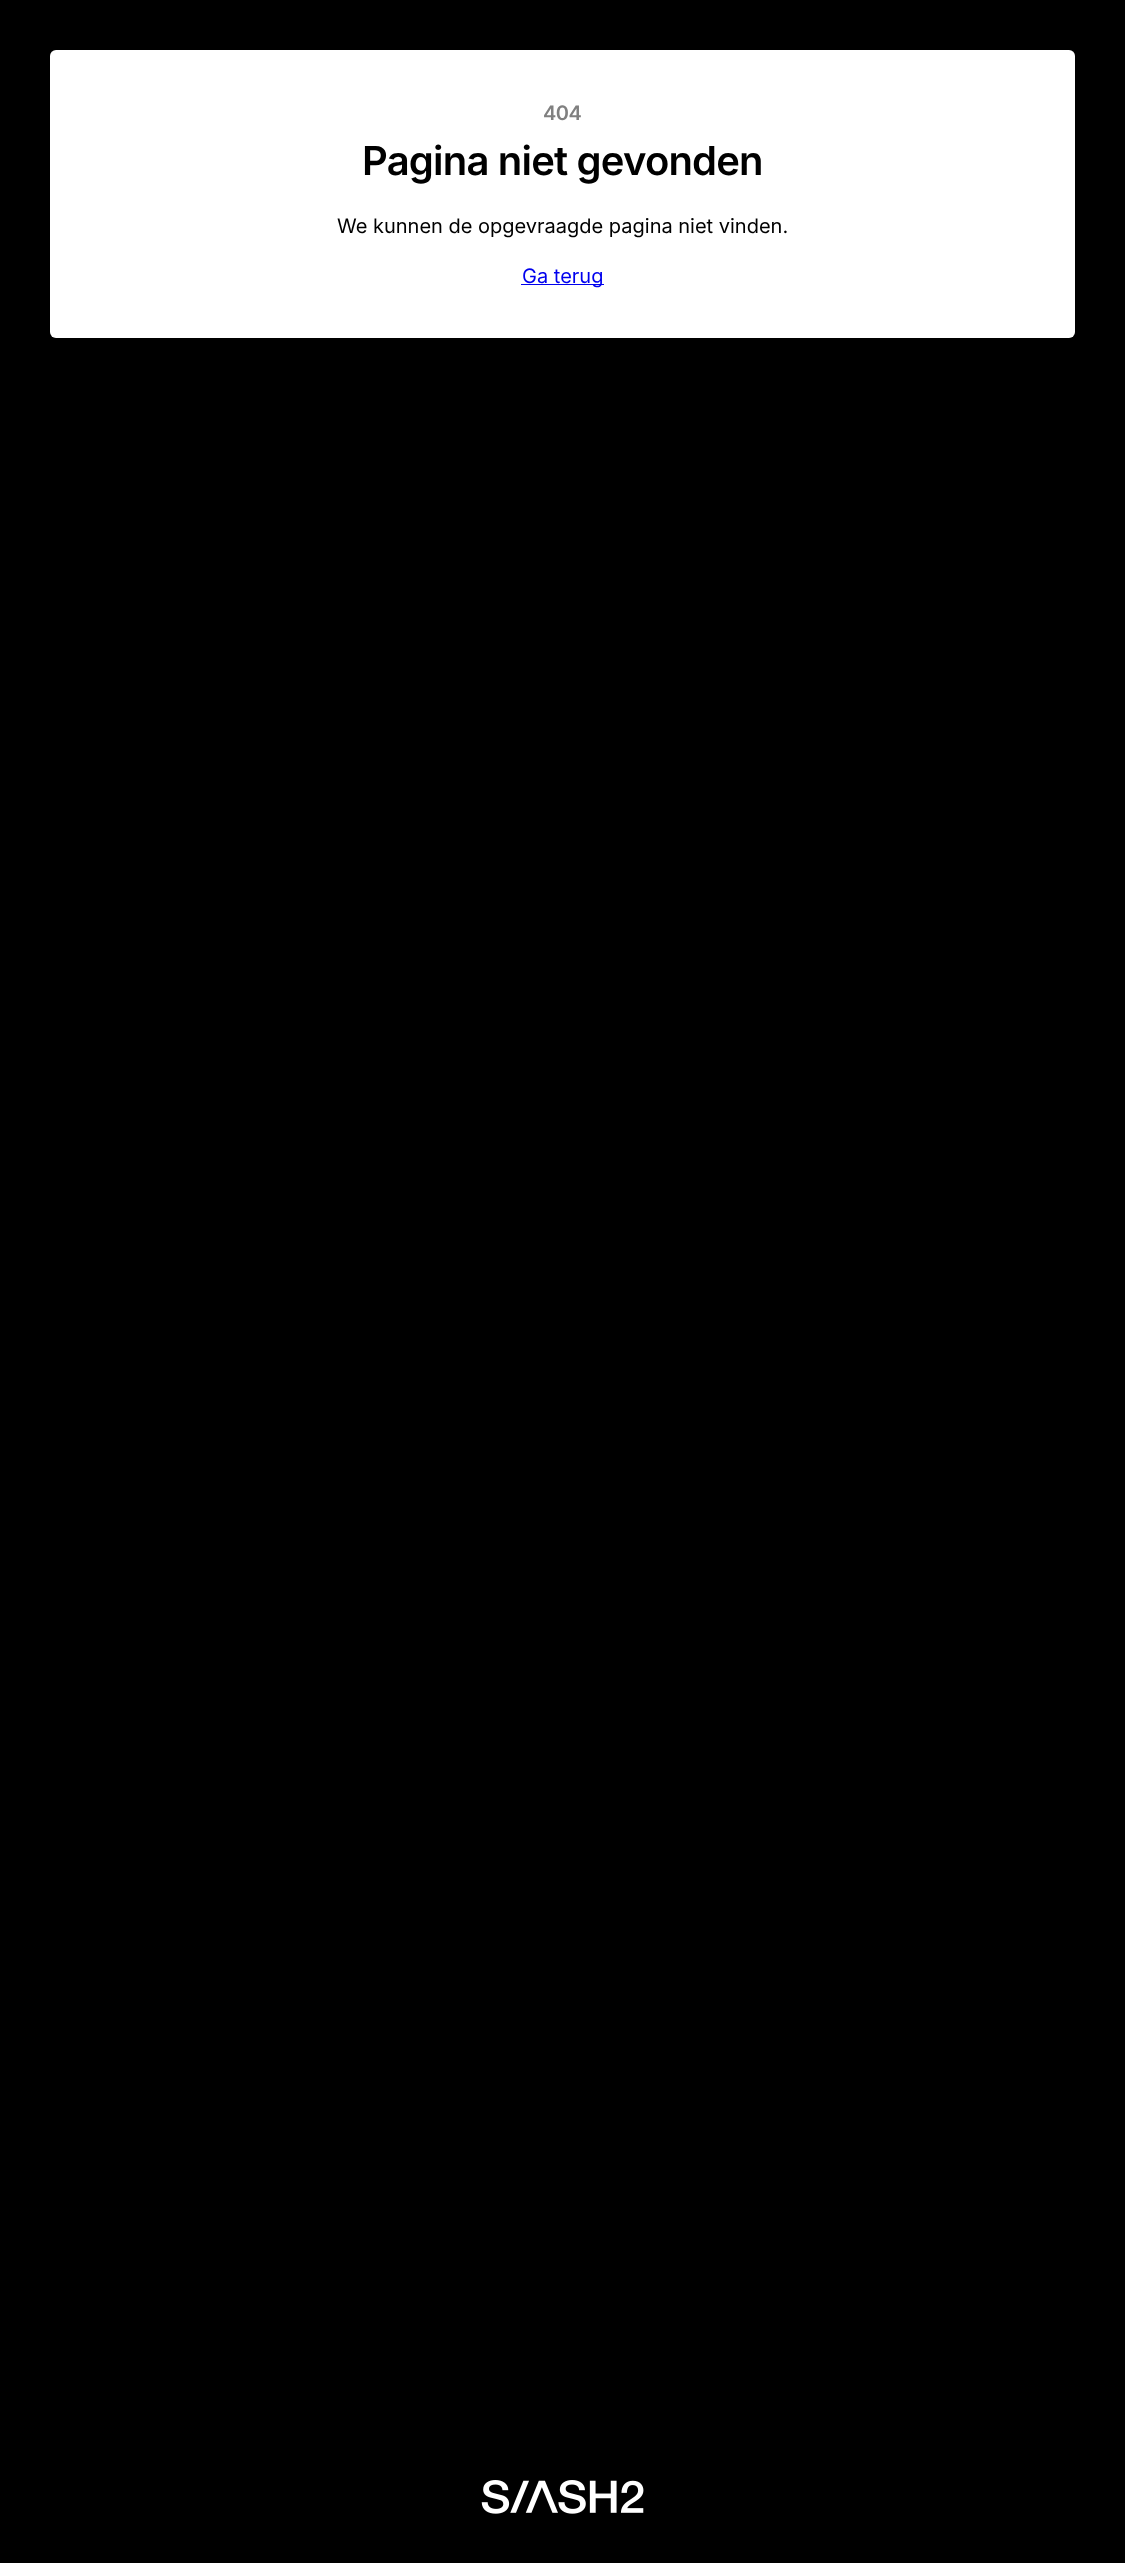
(async () => {
  const canvas = document.querySelector("canvas");
  canvas.width = 1125;
  canvas.height = 2563;
  const ctx = canvas.getContext("2d");
  ctx.miterLimit = 4;
  ctx.fontKerning = "normal";
  async function loadImage(src) {
    const img = new Image();
    img.src = src;
    await img.decode();
    return img;
  }

  ctx.fillStyle = "#000000";
  ctx.fillRect(0, 0, 1125, 2563);
  ctx.fillStyle = "#ffffff";
  ctx.beginPath();
  ctx.roundRect(50, 50, 1025, 288, 6);
  ctx.fill();
  ctx.fillStyle = "#0000ee";
  ctx.fillRect(521, 284, 83, 1);
  ctx.drawImage(await loadImage("img/1.png"), 481, 2480, 163, 34);
  ctx.letterSpacing = "-0.5px";
  ctx.font = "600 20px Inter";
  ctx.fillStyle = "#808080";
  ctx.fillText("404", 543, 120);
  ctx.letterSpacing = "-0.8px";
  ctx.font = "600 40px Inter";
  ctx.fillStyle = "#000000";
  ctx.fillText("Pagina niet gevonden", 362, 175);
  ctx.letterSpacing = "0px";
  ctx.font = "20px Inter";
  ctx.fillText("We kunnen de opgevraagde pagina niet vinden.", 337, 233);
  ctx.fillStyle = "#0000ee";
  ctx.fillText("Ga terug", 522, 283);
})();
